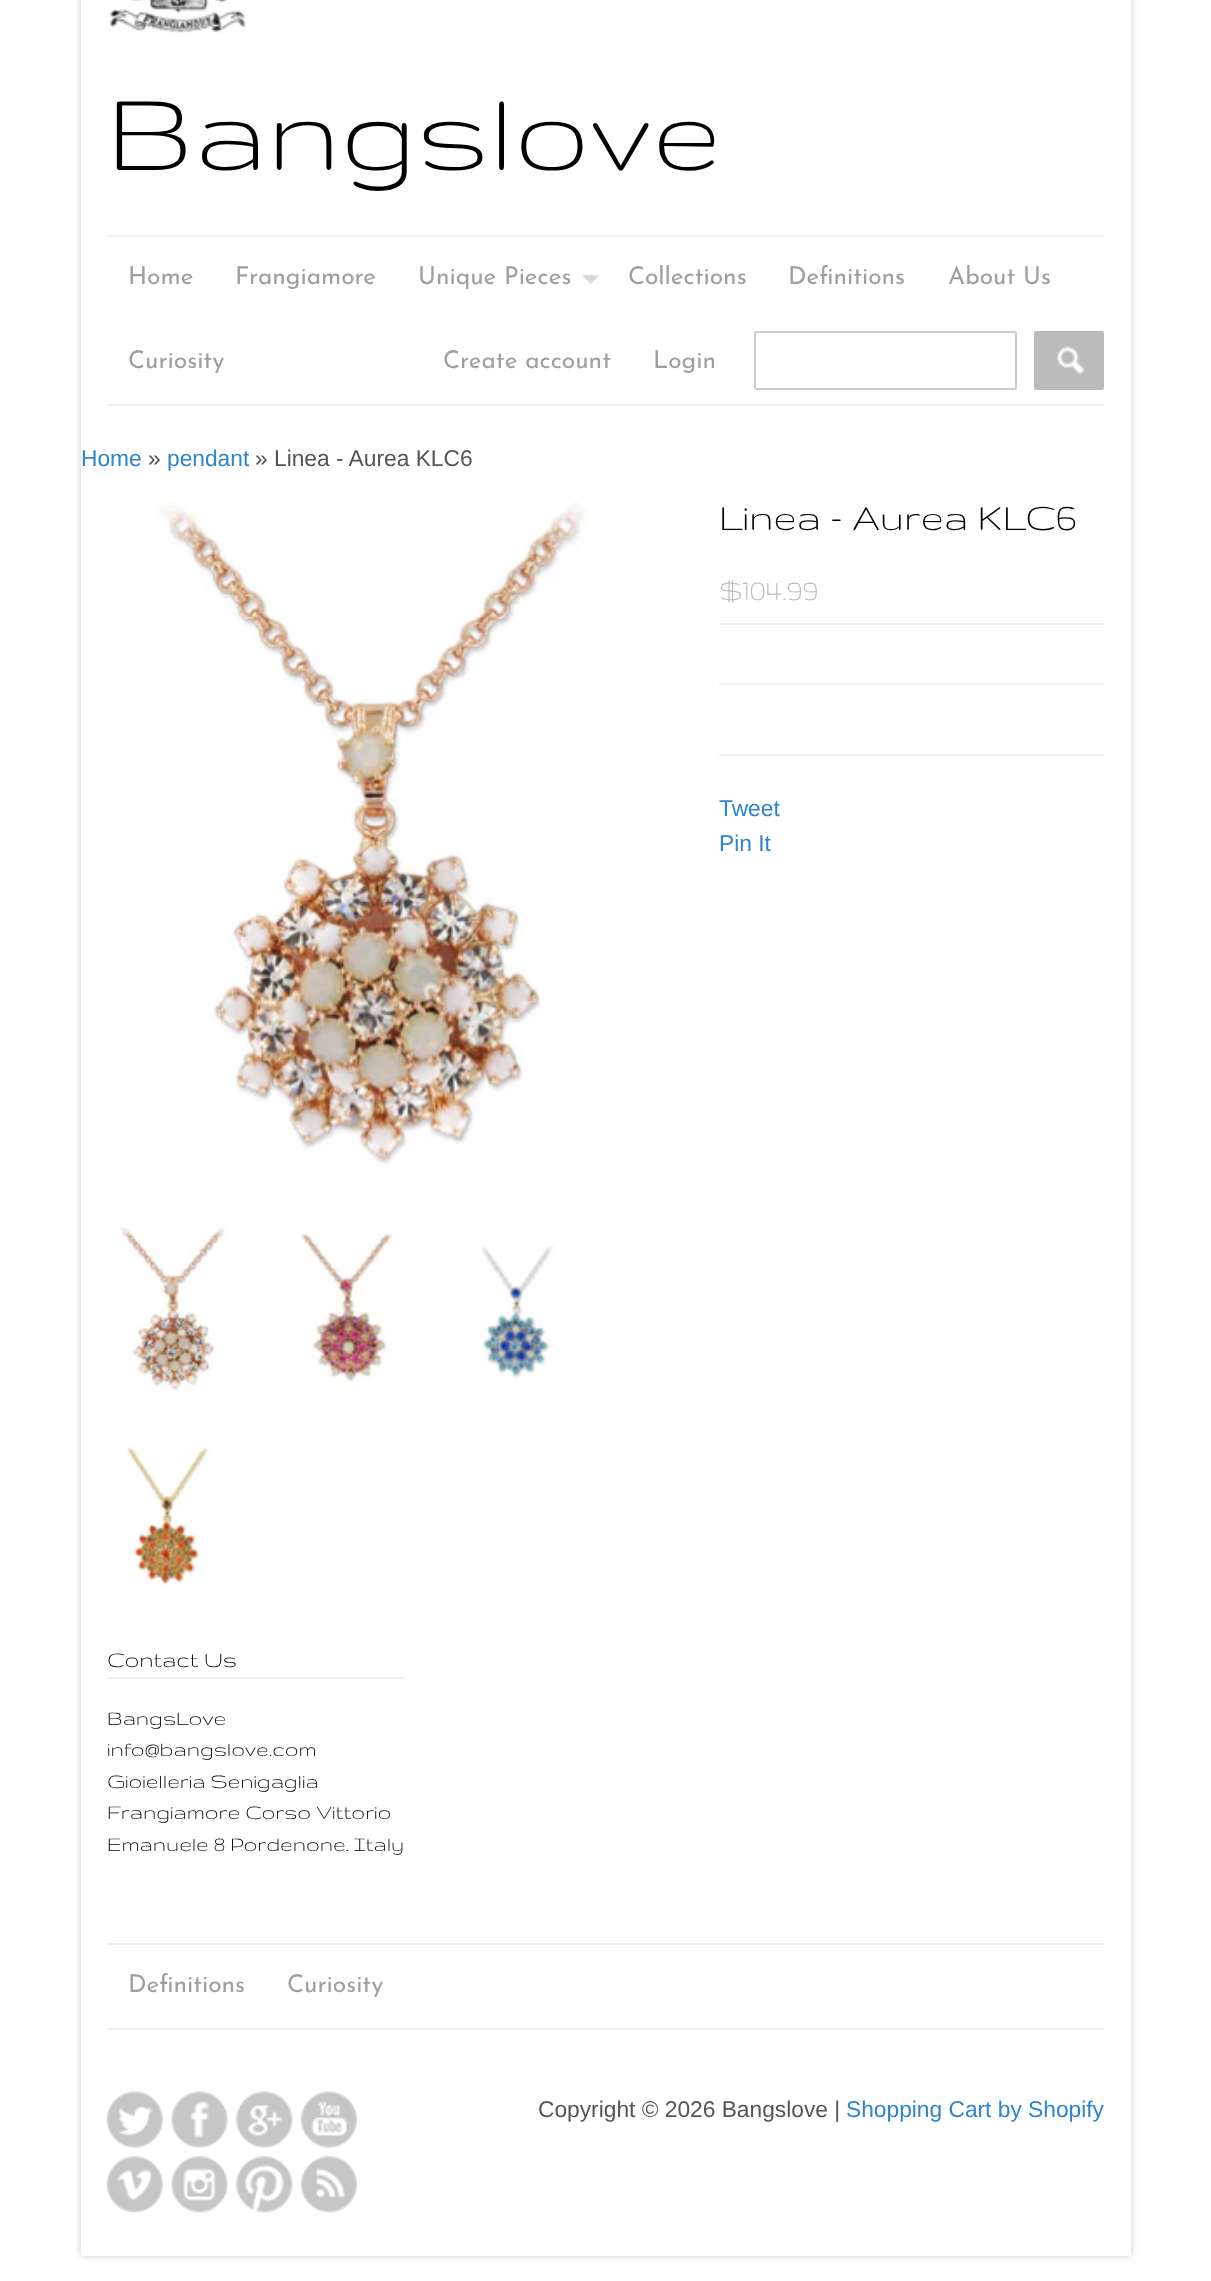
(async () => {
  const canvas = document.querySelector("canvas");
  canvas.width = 1211;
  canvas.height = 2281;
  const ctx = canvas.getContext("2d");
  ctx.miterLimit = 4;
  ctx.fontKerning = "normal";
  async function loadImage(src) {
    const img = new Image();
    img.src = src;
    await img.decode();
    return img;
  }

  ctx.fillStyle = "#ffffff";
  ctx.fillRect(0, 0, 1211, 2281);
  ctx.fillStyle = "rgba(0, 0, 0, 0.2)";
  ctx.filter = "blur(3.5px)";
  ctx.beginPath();
  ctx.rect(81, -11, 1050, 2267);
  ctx.fill();
  ctx.filter = "none";
  ctx.fillStyle = "#ffffff";
  ctx.fillRect(81, 0, 1050, 2256);
  ctx.drawImage(await loadImage("img/1.png"), 109, 0, 137, 33);
  ctx.fillStyle = "#f0f0f0";
  ctx.fillRect(107, 235, 997, 2);
  ctx.fillRect(107, 404, 997, 2);
  ctx.drawImage(await loadImage("img/2.png"), 582, 274, 17, 11);
  ctx.beginPath();
  ctx.roundRect(755, 332, 261, 57, 1);
  ctx.strokeStyle = "#cccccc";
  ctx.lineWidth = 2;
  ctx.stroke();
  ctx.fillStyle = "#bbbbbb";
  ctx.beginPath();
  ctx.roundRect(1034, 331, 70, 59, 2);
  ctx.fill();
  ctx.drawImage(await loadImage("img/3.png"), 1056, 346, 29, 29);
  ctx.drawImage(await loadImage("img/4.png"), 155, 502, 434, 663);
  ctx.drawImage(await loadImage("img/5.png"), 120, 1227, 106, 164);
  ctx.drawImage(await loadImage("img/6.png"), 300, 1233, 93, 155);
  ctx.drawImage(await loadImage("img/7.png"), 481, 1245, 73, 133);
  ctx.drawImage(await loadImage("img/8.png"), 126, 1444, 83, 141);
  for (const [x, y, w, h, color] of [
    [719, 623, 385, 2, "#f0f0f0"],
    [719, 683, 385, 2, "#f0f0f0"],
    [719, 754, 385, 2, "#f0f0f0"],
    [107, 1677, 297, 2, "#f0f0f0"],
    [107, 1943, 997, 2, "#f0f0f0"],
    [107, 2028, 997, 2, "#f0f0f0"],
  ]) {
    ctx.fillStyle = color;
    ctx.fillRect(x, y, w, h);
  }
  ctx.drawImage(await loadImage("img/9.png"), 106, 2091, 57, 57);
  ctx.drawImage(await loadImage("img/10.png"), 171, 2091, 57, 57);
  ctx.drawImage(await loadImage("img/11.png"), 236, 2091, 57, 57);
  ctx.drawImage(await loadImage("img/12.png"), 301, 2091, 56, 57);
  ctx.drawImage(await loadImage("img/13.png"), 106, 2156, 57, 57);
  ctx.drawImage(await loadImage("img/14.png"), 171, 2156, 57, 57);
  ctx.drawImage(await loadImage("img/15.png"), 236, 2156, 57, 57);
  ctx.drawImage(await loadImage("img/16.png"), 301, 2156, 56, 57);
  ctx.font = "126px Gruppo";
  ctx.fillStyle = "#000000";
  ctx.fillText("Bangslove", 107, 170);
  ctx.font = "24.5px Josefin Sans";
  ctx.fillStyle = "#9f9f9f";
  for (const [text, x, y] of [
    ["Home", 128, 284],
    ["Frangiamore", 235, 284],
    ["Unique Pieces", 418, 284],
    ["Collections", 628, 284],
    ["Definitions", 788, 284],
    ["About Us", 948, 284],
    ["Curiosity", 128, 368],
    ["Create account", 443, 368],
    ["Login", 653, 368],
  ]) {
    ctx.fillText(text, x, y);
  }
  ctx.font = "22.75px Liberation Sans";
  ctx.fillStyle = "#3084ca";
  ctx.fillText("Home", 81, 466);
  ctx.fillStyle = "#555555";
  ctx.fillText("»", 148, 466);
  ctx.fillStyle = "#3084ca";
  ctx.fillText("pendant", 167, 466);
  ctx.fillStyle = "#555555";
  ctx.fillText("» Linea - Aurea KLC6", 255, 466);
  ctx.font = "42px Gruppo";
  ctx.fillStyle = "#000000";
  ctx.fillText("Linea - Aurea KLC6", 719, 530);
  ctx.font = "31.5px Gruppo";
  ctx.fillStyle = "#bbbbbb";
  ctx.fillText("$104.99", 719, 600);
  ctx.font = "22.75px Liberation Sans";
  ctx.fillStyle = "#3084ca";
  ctx.fillText("Tweet", 719, 816);
  ctx.fillText("Pin It", 719, 851);
  ctx.font = "24.5px Gruppo";
  ctx.fillStyle = "#000000";
  ctx.fillText("Contact Us", 107, 1667);
  ctx.font = "22.75px Gruppo";
  for (const [text, x, y] of [
    ["BangsLove", 107, 1725],
    ["info@bangslove.com", 107, 1756],
    ["Gioielleria Senigaglia", 107, 1788],
    ["Frangiamore Corso Vittorio", 107, 1819],
    ["Emanuele 8 Pordenone. Italy", 107, 1851],
  ]) {
    ctx.fillText(text, x, y);
  }
  ctx.font = "24.5px Josefin Sans";
  ctx.fillStyle = "#9f9f9f";
  ctx.fillText("Definitions", 128, 1992);
  ctx.fillText("Curiosity", 287, 1992);
  ctx.font = "22.75px Liberation Sans";
  ctx.fillStyle = "#555555";
  ctx.fillText("Copyright © 2026 Bangslove |", 538, 2117);
  ctx.fillStyle = "#3084ca";
  ctx.fillText("Shopping Cart by Shopify", 846, 2117);
})();
